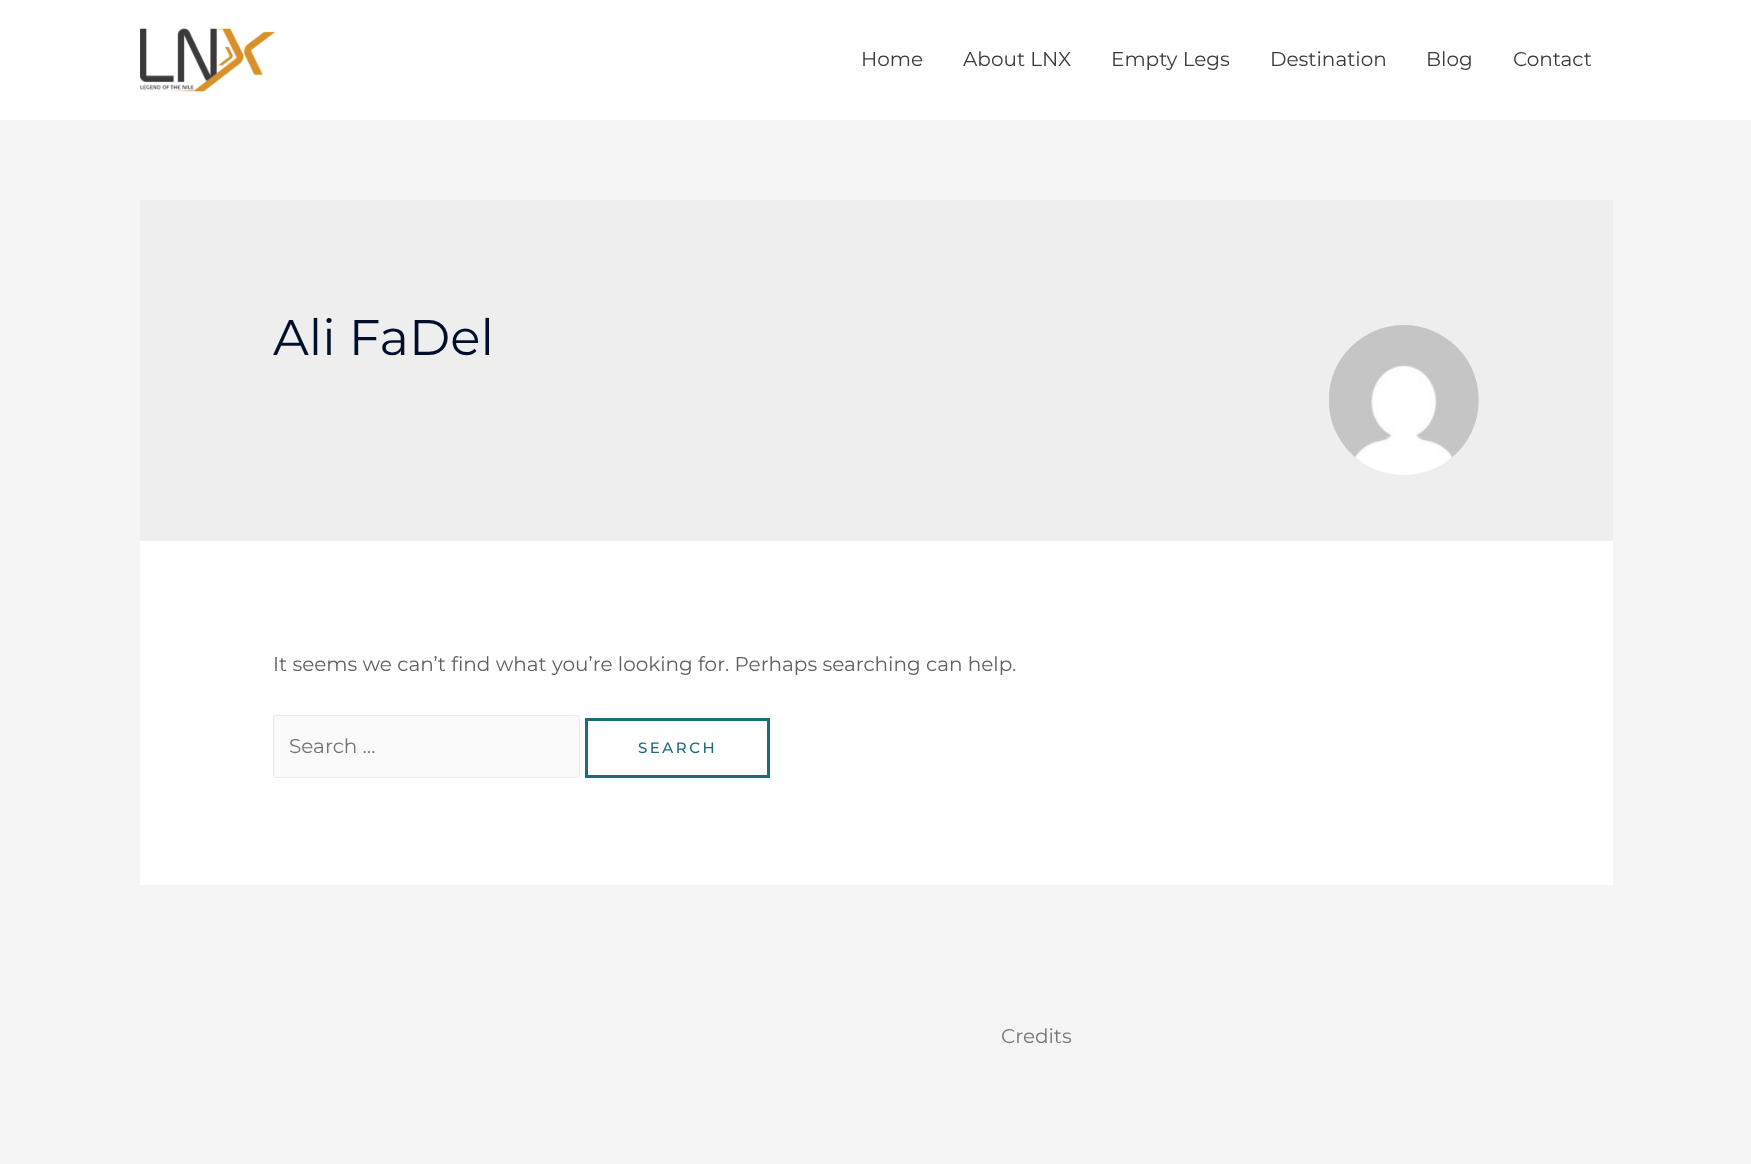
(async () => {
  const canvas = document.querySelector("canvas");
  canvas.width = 1751;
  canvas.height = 1164;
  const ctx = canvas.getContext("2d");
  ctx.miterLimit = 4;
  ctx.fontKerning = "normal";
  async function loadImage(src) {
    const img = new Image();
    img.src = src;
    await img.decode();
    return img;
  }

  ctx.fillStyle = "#f5f5f5";
  ctx.fillRect(0, 0, 1751, 1164);
  ctx.fillStyle = "#ffffff";
  ctx.fillRect(0, 0, 1751, 120);
  ctx.drawImage(await loadImage("img/1.png"), 140, 28, 135, 64);
  ctx.fillStyle = "#eeeeee";
  ctx.fillRect(140, 200, 1473, 341);
  ctx.drawImage(await loadImage("img/2.png"), 1329, 325, 150, 150);
  ctx.fillStyle = "#ffffff";
  ctx.fillRect(140, 541, 1473, 344);
  ctx.fillStyle = "#fafafa";
  ctx.beginPath();
  ctx.roundRect(273.5, 715.5, 306, 62, 2);
  ctx.fill();
  ctx.strokeStyle = "#eaeaea";
  ctx.stroke();
  ctx.strokeStyle = "#1a6c7a";
  ctx.lineWidth = 3;
  ctx.strokeRect(586.5, 719.5, 182, 57);
  ctx.font = "20px Montserrat";
  ctx.fillStyle = "#3a3a3a";
  for (const [text, x, y] of [
    ["Home", 861, 66],
    ["About LNX", 963, 66],
    ["Empty Legs", 1111, 66],
    ["Destination", 1270, 66],
    ["Blog", 1426, 66],
    ["Contact", 1513, 66],
  ]) {
    ctx.fillText(text, x, y);
  }
  ctx.font = "50px Montserrat";
  ctx.fillStyle = "#000f2b";
  ctx.fillText("Ali FaDel", 273, 355);
  ctx.font = "20px Montserrat";
  ctx.fillStyle = "#625f5f";
  ctx.fillText("It seems we can’t find what you’re looking for. Perhaps searching can help.", 273, 671);
  ctx.fillStyle = "#757575";
  ctx.fillText("Search …", 289, 753);
  ctx.letterSpacing = "2.5px";
  ctx.font = "500 15px Montserrat";
  ctx.fillStyle = "#1a6c7a";
  ctx.fillText("SEARCH", 638, 753);
  ctx.letterSpacing = "0px";
  ctx.font = "20px Montserrat";
  ctx.fillStyle = "#757575";
  ctx.fillText("Credits", 1001, 1043);
})();
